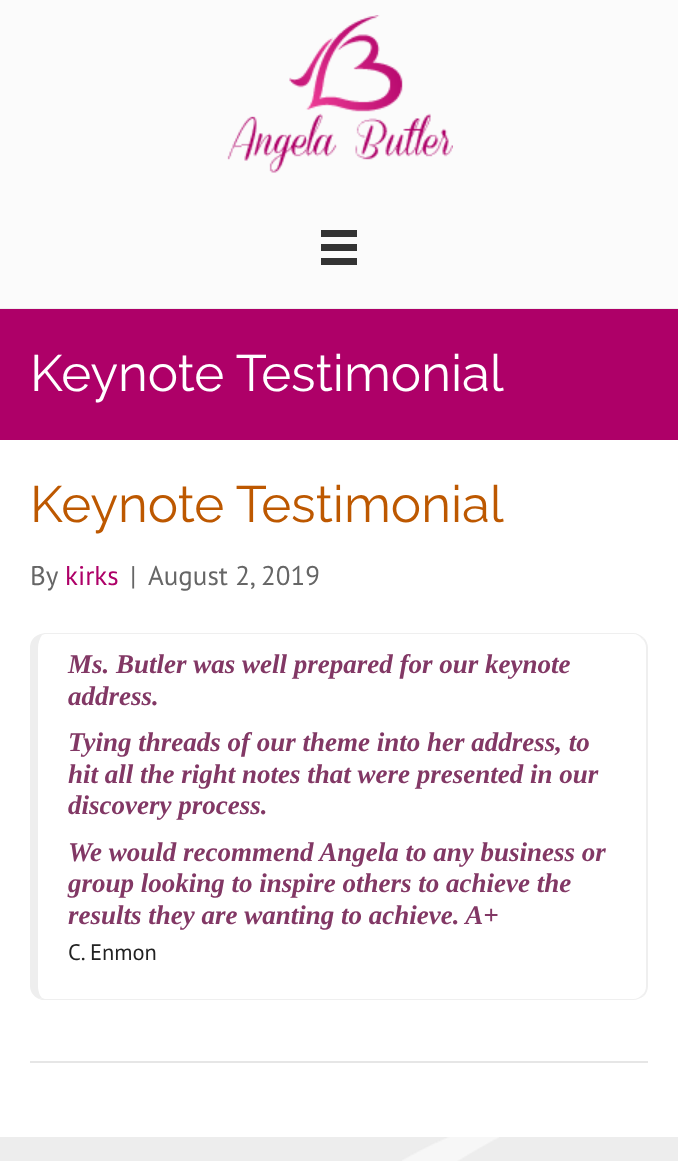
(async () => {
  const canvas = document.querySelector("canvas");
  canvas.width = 678;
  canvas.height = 1161;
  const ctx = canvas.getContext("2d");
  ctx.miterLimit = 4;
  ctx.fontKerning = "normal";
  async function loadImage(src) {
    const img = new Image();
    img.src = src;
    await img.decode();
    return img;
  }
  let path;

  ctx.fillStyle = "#ffffff";
  ctx.fillRect(0, 0, 678, 1161);
  ctx.fillStyle = "#fbfbfb";
  ctx.fillRect(0, 0, 678, 308);
  ctx.fillStyle = "#eeeeee";
  ctx.fillRect(0, 308, 678, 1);
  ctx.drawImage(await loadImage("img/1.png"), 227, 15, 226, 158);
  for (const [x, y, w, h, color] of [
    [321, 230, 36, 7, "#333333"],
    [321, 244, 36, 7, "#333333"],
    [321, 258, 36, 7, "#333333"],
    [0, 309, 678, 131, "#ae0068"],
  ]) {
    ctx.fillStyle = color;
    ctx.fillRect(x, y, w, h);
  }
  ctx.fillStyle = "#efefef";
  path = new Path2D("M45 633C43 633 40 634 38 635H42L45 634H633C637 634 640 636 642 639L644 638C641 635 637 633 633 633Z");
  ctx.fill(path);
  path = new Path2D("M648 986V648C648 644 646 640 644 638L642 639C645 641 646 645 646 648V986C646 989 645 993 642 995L644 996C646 994 648 990 648 986Z");
  ctx.fill(path);
  path = new Path2D("M644 996C641 998 637 1000 633 1000H45C43 1000 41 1000 39 999L42 998L45 999H633C637 999 640 997 642 995Z");
  ctx.fill(path);
  ctx.fillStyle = "#eeeeee";
  path = new Path2D("M30 648V986C30 992 34 997 39 999L42 998C40 996 38 991 38 986V648C38 643 40 638 42 635H38C33 637 30 642 30 648Z");
  ctx.fill(path);
  ctx.fillStyle = "#e6e6e6";
  ctx.fillRect(30, 1061, 618, 2);
  ctx.fillStyle = "#ededed";
  ctx.fillRect(0, 1137, 678, 24);
  ctx.drawImage(await loadImage("img/2.png"), 402, 1137, 97, 24);
  ctx.font = "100 51px Raleway";
  ctx.fillStyle = "#ffffff";
  ctx.fillText("Keynote Testimonial", 30, 391);
  ctx.fillStyle = "#bd5800";
  ctx.fillText("Keynote Testimonial", 30, 522);
  ctx.font = "27px PT Sans";
  ctx.fillStyle = "#666666";
  ctx.fillText("By", 30, 585);
  ctx.fillStyle = "#ae0068";
  ctx.fillText("kirks", 65, 585);
  ctx.fillStyle = "#666666";
  ctx.fillText("|", 130, 585);
  ctx.fillText("August 2, 2019", 148, 585);
  ctx.font = "italic bold 27px Liberation Serif";
  ctx.fillStyle = "#823865";
  for (const [text, x, y] of [
    ["Ms. Butler was well prepared for our keynote", 68, 673],
    ["address.", 68, 705],
    ["Tying threads of our theme into her address, to", 68, 751],
    ["hit all the right notes that were presented in our", 68, 783],
    ["discovery process.", 68, 814],
    ["We would recommend Angela to any business or", 68, 861],
    ["group looking to inspire others to achieve the", 68, 892],
    ["results they are wanting to achieve. A+", 68, 924],
  ]) {
    ctx.fillText(text, x, y);
  }
  ctx.font = "22.5px PT Sans";
  ctx.fillStyle = "#222222";
  ctx.fillText("C. Enmon", 68, 960);
})();
